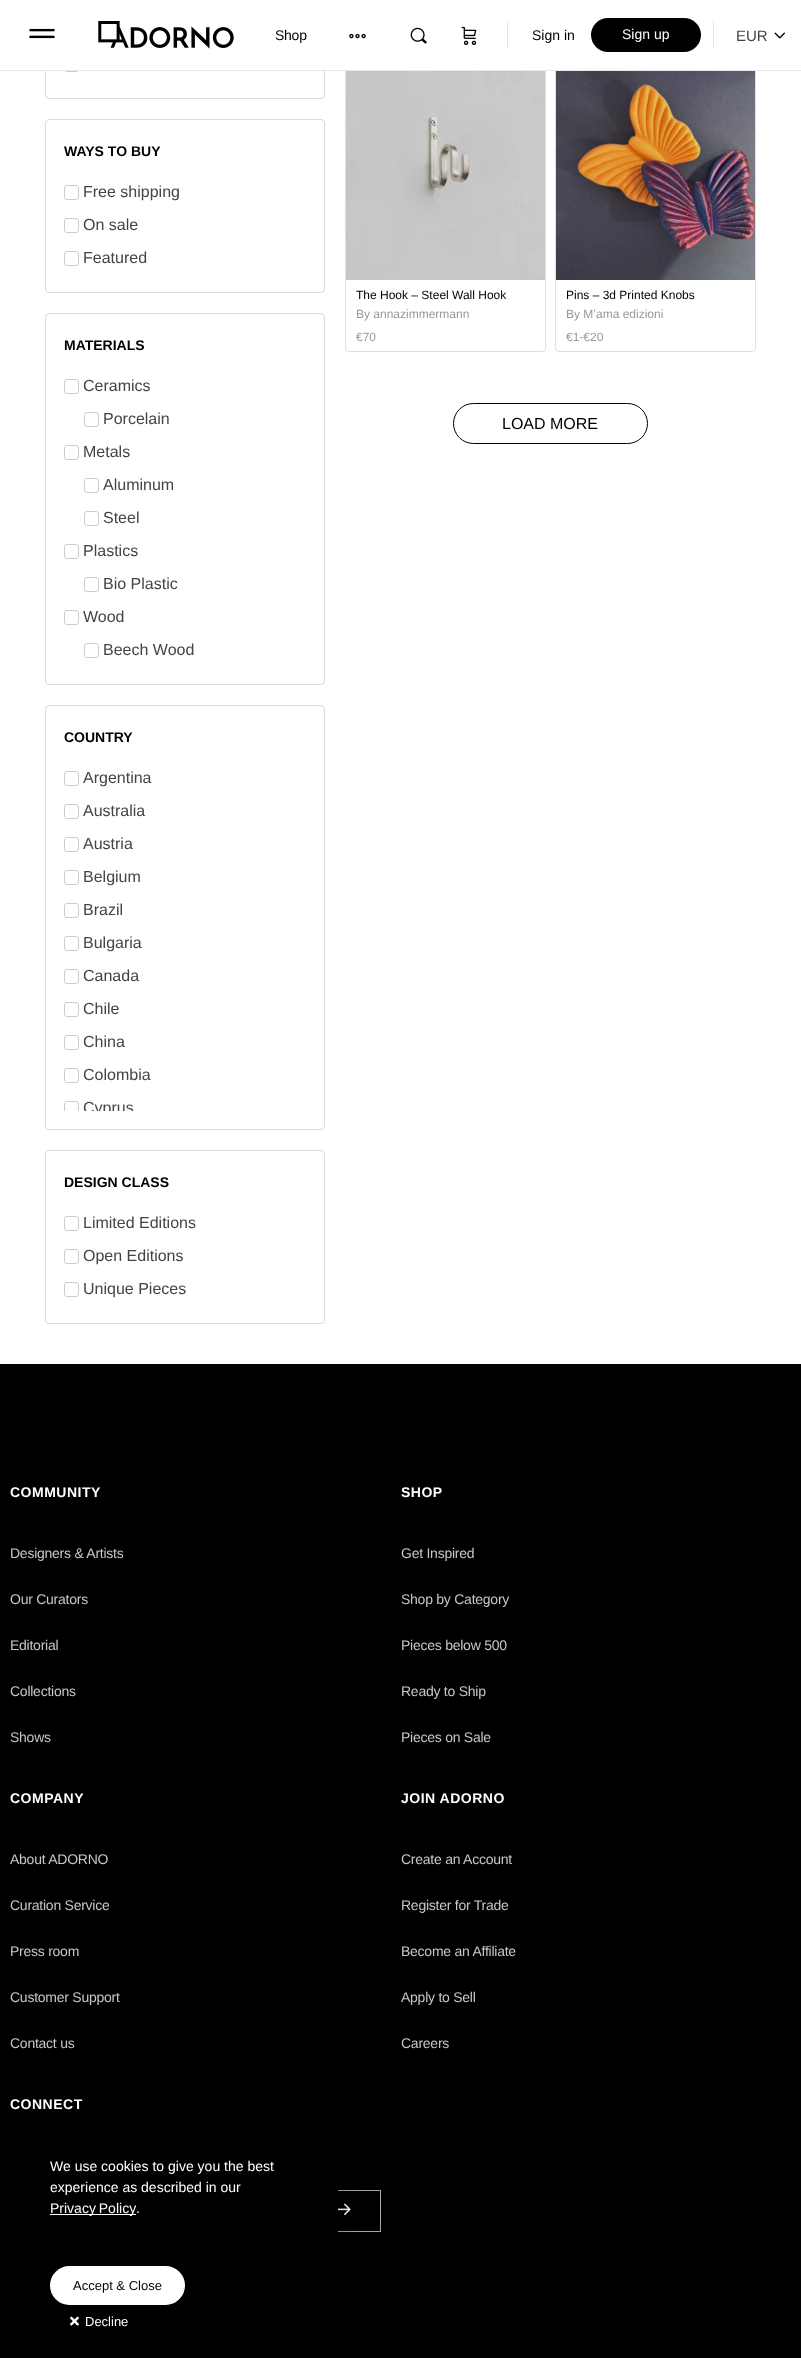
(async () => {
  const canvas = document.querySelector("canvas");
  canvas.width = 801;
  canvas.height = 2358;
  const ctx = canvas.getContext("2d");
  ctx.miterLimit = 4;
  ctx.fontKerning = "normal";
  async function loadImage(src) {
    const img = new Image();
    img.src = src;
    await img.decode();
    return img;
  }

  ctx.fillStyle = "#ffffff";
  ctx.fillRect(0, 0, 801, 2358);
  ctx.beginPath();
  ctx.roundRect(45.5, -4.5, 279, 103, 3.5);
  ctx.strokeStyle = "#dadada";
  ctx.stroke();
  ctx.beginPath();
  ctx.roundRect(64.5, 57.5, 14, 14, 2.5);
  ctx.strokeStyle = "#cccccc";
  ctx.stroke();
  ctx.beginPath();
  ctx.roundRect(345.5, 29.5, 200, 322, 3.5);
  ctx.strokeStyle = "#dedfe2";
  ctx.stroke();
  ctx.beginPath();
  ctx.roundRect(555.5, 29.5, 200, 322, 3.5);
  ctx.stroke();
  ctx.fillRect(45, 0, 711, 70);
  ctx.fillStyle = "#e7e9ec";
  ctx.fillRect(0, 70, 801, 1);
  ctx.drawImage(await loadImage("img/1.png"), 29, 28, 26, 11);
  ctx.drawImage(await loadImage("img/2.png"), 98, 21, 136, 28);
  ctx.drawImage(await loadImage("img/3.png"), 349, 33, 17, 6);
  ctx.drawImage(await loadImage("img/4.png"), 410, 27, 17, 17);
  ctx.drawImage(await loadImage("img/5.png"), 461, 26, 16, 19);
  ctx.fillStyle = "#e6e6e6";
  ctx.fillRect(507, 21, 1, 28);
  ctx.fillStyle = "#000000";
  ctx.beginPath();
  ctx.roundRect(591, 18, 110, 34, 17);
  ctx.fill();
  ctx.fillStyle = "#e6e6e6";
  ctx.fillRect(713, 21, 1, 28);
  ctx.drawImage(await loadImage("img/6.png"), 774, 32, 11, 7);
  ctx.beginPath();
  ctx.roundRect(45.5, 119.5, 279, 173, 3.5);
  ctx.strokeStyle = "#dadada";
  ctx.stroke();
  ctx.beginPath();
  ctx.roundRect(64.5, 185.5, 14, 14, 2.5);
  ctx.strokeStyle = "#cccccc";
  ctx.stroke();
  ctx.beginPath();
  ctx.roundRect(64.5, 218.5, 14, 14, 2.5);
  ctx.stroke();
  ctx.beginPath();
  ctx.roundRect(64.5, 251.5, 14, 14, 2.5);
  ctx.stroke();
  ctx.beginPath();
  ctx.roundRect(45.5, 313.5, 279, 371, 3.5);
  ctx.strokeStyle = "#dadada";
  ctx.stroke();
  ctx.beginPath();
  ctx.roundRect(64.5, 379.5, 14, 14, 2.5);
  ctx.strokeStyle = "#cccccc";
  ctx.stroke();
  ctx.beginPath();
  ctx.roundRect(84.5, 412.5, 14, 14, 2.5);
  ctx.stroke();
  ctx.beginPath();
  ctx.roundRect(64.5, 445.5, 14, 14, 2.5);
  ctx.stroke();
  ctx.beginPath();
  ctx.roundRect(84.5, 478.5, 14, 14, 2.5);
  ctx.stroke();
  ctx.beginPath();
  ctx.roundRect(84.5, 511.5, 14, 14, 2.5);
  ctx.stroke();
  ctx.beginPath();
  ctx.roundRect(64.5, 544.5, 14, 14, 2.5);
  ctx.stroke();
  ctx.beginPath();
  ctx.roundRect(84.5, 577.5, 14, 14, 2.5);
  ctx.stroke();
  ctx.beginPath();
  ctx.roundRect(64.5, 610.5, 14, 14, 2.5);
  ctx.stroke();
  ctx.beginPath();
  ctx.roundRect(84.5, 643.5, 14, 14, 2.5);
  ctx.stroke();
  ctx.beginPath();
  ctx.roundRect(45.5, 705.5, 279, 424, 3.5);
  ctx.strokeStyle = "#dadada";
  ctx.stroke();
  ctx.beginPath();
  ctx.roundRect(64.5, 771.5, 14, 14, 2.5);
  ctx.strokeStyle = "#cccccc";
  ctx.stroke();
  ctx.beginPath();
  ctx.roundRect(64.5, 804.5, 14, 14, 2.5);
  ctx.stroke();
  ctx.beginPath();
  ctx.roundRect(64.5, 837.5, 14, 14, 2.5);
  ctx.stroke();
  ctx.beginPath();
  ctx.roundRect(64.5, 870.5, 14, 14, 2.5);
  ctx.stroke();
  ctx.beginPath();
  ctx.roundRect(64.5, 903.5, 14, 14, 2.5);
  ctx.stroke();
  ctx.beginPath();
  ctx.roundRect(64.5, 936.5, 14, 14, 2.5);
  ctx.stroke();
  ctx.beginPath();
  ctx.roundRect(64.5, 969.5, 14, 14, 2.5);
  ctx.stroke();
  ctx.beginPath();
  ctx.roundRect(64.5, 1002.5, 14, 14, 2.5);
  ctx.stroke();
  ctx.beginPath();
  ctx.roundRect(64.5, 1035.5, 14, 14, 2.5);
  ctx.stroke();
  ctx.beginPath();
  ctx.roundRect(64.5, 1068.5, 14, 14, 2.5);
  ctx.stroke();
  ctx.save();
  ctx.beginPath();
  ctx.rect(64, 761, 242, 350);
  ctx.clip();
  ctx.beginPath();
  ctx.roundRect(64.5, 1101.5, 14, 14, 2.5);
  ctx.stroke();
  ctx.restore();
  ctx.beginPath();
  ctx.roundRect(45.5, 1150.5, 279, 173, 3.5);
  ctx.strokeStyle = "#dadada";
  ctx.stroke();
  ctx.beginPath();
  ctx.roundRect(64.5, 1216.5, 14, 14, 2.5);
  ctx.strokeStyle = "#cccccc";
  ctx.stroke();
  ctx.beginPath();
  ctx.roundRect(64.5, 1249.5, 14, 14, 2.5);
  ctx.stroke();
  ctx.beginPath();
  ctx.roundRect(64.5, 1282.5, 14, 14, 2.5);
  ctx.stroke();
  ctx.drawImage(await loadImage("img/7.png"), 346, 71, 199, 209);
  ctx.drawImage(await loadImage("img/8.png"), 556, 71, 199, 209);
  ctx.beginPath();
  ctx.roundRect(453.5, 403.5, 194, 40, 20);
  ctx.strokeStyle = "#000000";
  ctx.stroke();
  ctx.fillStyle = "#000000";
  ctx.fillRect(0, 1364, 801, 994);
  ctx.strokeStyle = "#a3a5a9";
  ctx.strokeRect(10.5, 2190.5, 370, 41);
  ctx.drawImage(await loadImage("img/9.png"), 338, 2203, 13, 12);
  ctx.fillStyle = "rgba(0, 0, 0, 0.2)";
  ctx.filter = "blur(11.5px)";
  ctx.beginPath();
  ctx.rect(-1, 2141, 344, 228);
  ctx.fill();
  ctx.filter = "none";
  ctx.fillStyle = "#000000";
  ctx.fillRect(10, 2190, 328, 42);
  ctx.fillStyle = "#ffffff";
  ctx.fillRect(50, 2214, 86, 1);
  ctx.beginPath();
  ctx.roundRect(51.5, 2267.5, 132, 36, 18);
  ctx.fill();
  ctx.strokeStyle = "#ffffff";
  ctx.lineWidth = 3;
  ctx.stroke();
  ctx.drawImage(await loadImage("img/10.png"), 70, 2316, 9, 10);
  ctx.letterSpacing = "-0.25px";
  ctx.font = "14px Liberation Sans";
  ctx.fillStyle = "#000000";
  ctx.fillText("Shop", 275, 40);
  ctx.letterSpacing = "0px";
  ctx.fillText("Sign in", 532, 40);
  ctx.fillStyle = "#ffffff";
  ctx.fillText("Sign up", 622, 39);
  ctx.font = "15px Liberation Sans";
  ctx.fillStyle = "#444444";
  ctx.fillText("EUR", 736, 41);
  ctx.font = "bold 14px Liberation Sans";
  ctx.fillStyle = "#000000";
  ctx.fillText("WAYS TO BUY", 64, 156);
  ctx.font = "16px Liberation Sans";
  ctx.fillStyle = "#444444";
  for (const [text, x, y] of [
    ["Free shipping", 83, 197],
    ["On sale", 83, 230],
    ["Featured", 83, 263],
  ]) {
    ctx.fillText(text, x, y);
  }
  ctx.font = "bold 14px Liberation Sans";
  ctx.fillStyle = "#000000";
  ctx.fillText("MATERIALS", 64, 350);
  ctx.font = "16px Liberation Sans";
  ctx.fillStyle = "#444444";
  for (const [text, x, y] of [
    ["Ceramics", 83, 391],
    ["Porcelain", 103, 424],
    ["Metals", 83, 457],
    ["Aluminum", 103, 490],
    ["Steel", 103, 523],
    ["Plastics", 83, 556],
    ["Bio Plastic", 103, 589],
    ["Wood", 83, 622],
    ["Beech Wood", 103, 655],
  ]) {
    ctx.fillText(text, x, y);
  }
  ctx.font = "bold 14px Liberation Sans";
  ctx.fillStyle = "#000000";
  ctx.fillText("COUNTRY", 64, 742);
  ctx.font = "16px Liberation Sans";
  ctx.fillStyle = "#444444";
  for (const [text, x, y] of [
    ["Argentina", 83, 783],
    ["Australia", 83, 816],
    ["Austria", 83, 849],
    ["Belgium", 83, 882],
    ["Brazil", 83, 915],
    ["Bulgaria", 83, 948],
    ["Canada", 83, 981],
    ["Chile", 83, 1014],
    ["China", 83, 1047],
    ["Colombia", 83, 1080],
  ]) {
    ctx.fillText(text, x, y);
  }
  ctx.save();
  ctx.beginPath();
  ctx.rect(64, 761, 242, 350);
  ctx.clip();
  ctx.fillText("Cyprus", 83, 1113);
  ctx.restore();
  ctx.font = "bold 14px Liberation Sans";
  ctx.fillStyle = "#000000";
  ctx.fillText("DESIGN CLASS", 64, 1187);
  ctx.font = "16px Liberation Sans";
  ctx.fillStyle = "#444444";
  for (const [text, x, y] of [
    ["Limited Editions", 83, 1228],
    ["Open Editions", 83, 1261],
    ["Unique Pieces", 83, 1294],
  ]) {
    ctx.fillText(text, x, y);
  }
  ctx.font = "12px Liberation Sans";
  ctx.fillStyle = "#000000";
  ctx.fillText("The Hook – Steel Wall Hook", 356, 299);
  ctx.fillStyle = "#989898";
  ctx.fillText("By annazimmermann", 356, 318);
  ctx.fillText("€70", 356, 341);
  ctx.fillStyle = "#000000";
  ctx.fillText("Pins – 3d Printed Knobs", 566, 299);
  ctx.fillStyle = "#989898";
  ctx.fillText("By M’ama edizioni", 566, 318);
  ctx.fillText("€1-€20", 566, 341);
  ctx.font = "16px Liberation Sans";
  ctx.fillStyle = "#000000";
  ctx.fillText("LOAD MORE", 502, 429);
  ctx.letterSpacing = "0.5px";
  ctx.font = "bold 14px Liberation Sans";
  ctx.fillStyle = "#ffffff";
  ctx.fillText("COMMUNITY", 10, 1497);
  ctx.letterSpacing = "-0.25px";
  ctx.font = "14px Liberation Sans";
  ctx.fillStyle = "#c7c7c7";
  for (const [text, x, y] of [
    ["Designers & Artists", 10, 1558],
    ["Our Curators", 10, 1604],
    ["Editorial", 10, 1650],
    ["Collections", 10, 1696],
    ["Shows", 10, 1742],
  ]) {
    ctx.fillText(text, x, y);
  }
  ctx.letterSpacing = "0.5px";
  ctx.font = "bold 14px Liberation Sans";
  ctx.fillStyle = "#ffffff";
  ctx.fillText("SHOP", 401, 1497);
  ctx.letterSpacing = "-0.25px";
  ctx.font = "14px Liberation Sans";
  ctx.fillStyle = "#c7c7c7";
  for (const [text, x, y] of [
    ["Get Inspired", 401, 1558],
    ["Shop by Category", 401, 1604],
    ["Pieces below 500", 401, 1650],
    ["Ready to Ship", 401, 1696],
    ["Pieces on Sale", 401, 1742],
  ]) {
    ctx.fillText(text, x, y);
  }
  ctx.letterSpacing = "0.5px";
  ctx.font = "bold 14px Liberation Sans";
  ctx.fillStyle = "#ffffff";
  ctx.fillText("COMPANY", 10, 1803);
  ctx.letterSpacing = "-0.25px";
  ctx.font = "14px Liberation Sans";
  ctx.fillStyle = "#c7c7c7";
  for (const [text, x, y] of [
    ["About ADORNO", 10, 1864],
    ["Curation Service", 10, 1910],
    ["Press room", 10, 1956],
    ["Customer Support", 10, 2002],
    ["Contact us", 10, 2048],
  ]) {
    ctx.fillText(text, x, y);
  }
  ctx.letterSpacing = "0.5px";
  ctx.font = "bold 14px Liberation Sans";
  ctx.fillStyle = "#ffffff";
  ctx.fillText("JOIN ADORNO", 401, 1803);
  ctx.letterSpacing = "-0.25px";
  ctx.font = "14px Liberation Sans";
  ctx.fillStyle = "#c7c7c7";
  for (const [text, x, y] of [
    ["Create an Account", 401, 1864],
    ["Register for Trade", 401, 1910],
    ["Become an Affiliate", 401, 1956],
    ["Apply to Sell", 401, 2002],
    ["Careers", 401, 2048],
  ]) {
    ctx.fillText(text, x, y);
  }
  ctx.letterSpacing = "0.5px";
  ctx.font = "bold 14px Liberation Sans";
  ctx.fillStyle = "#ffffff";
  ctx.fillText("CONNECT", 10, 2109);
  ctx.letterSpacing = "0px";
  ctx.font = "14px Liberation Sans";
  ctx.fillText("We use cookies to give you the best", 50, 2171);
  ctx.fillText("experience as described in our", 50, 2192);
  ctx.wordSpacing = "-1px";
  ctx.fillText("Privacy Policy", 50, 2213);
  ctx.wordSpacing = "0px";
  ctx.fillText(".", 136, 2213);
  ctx.font = "13px Liberation Sans";
  ctx.fillStyle = "#000000";
  ctx.fillText("Accept & Close", 73, 2290);
  ctx.fillStyle = "#ffffff";
  ctx.fillText("Decline", 85, 2326);
})();
